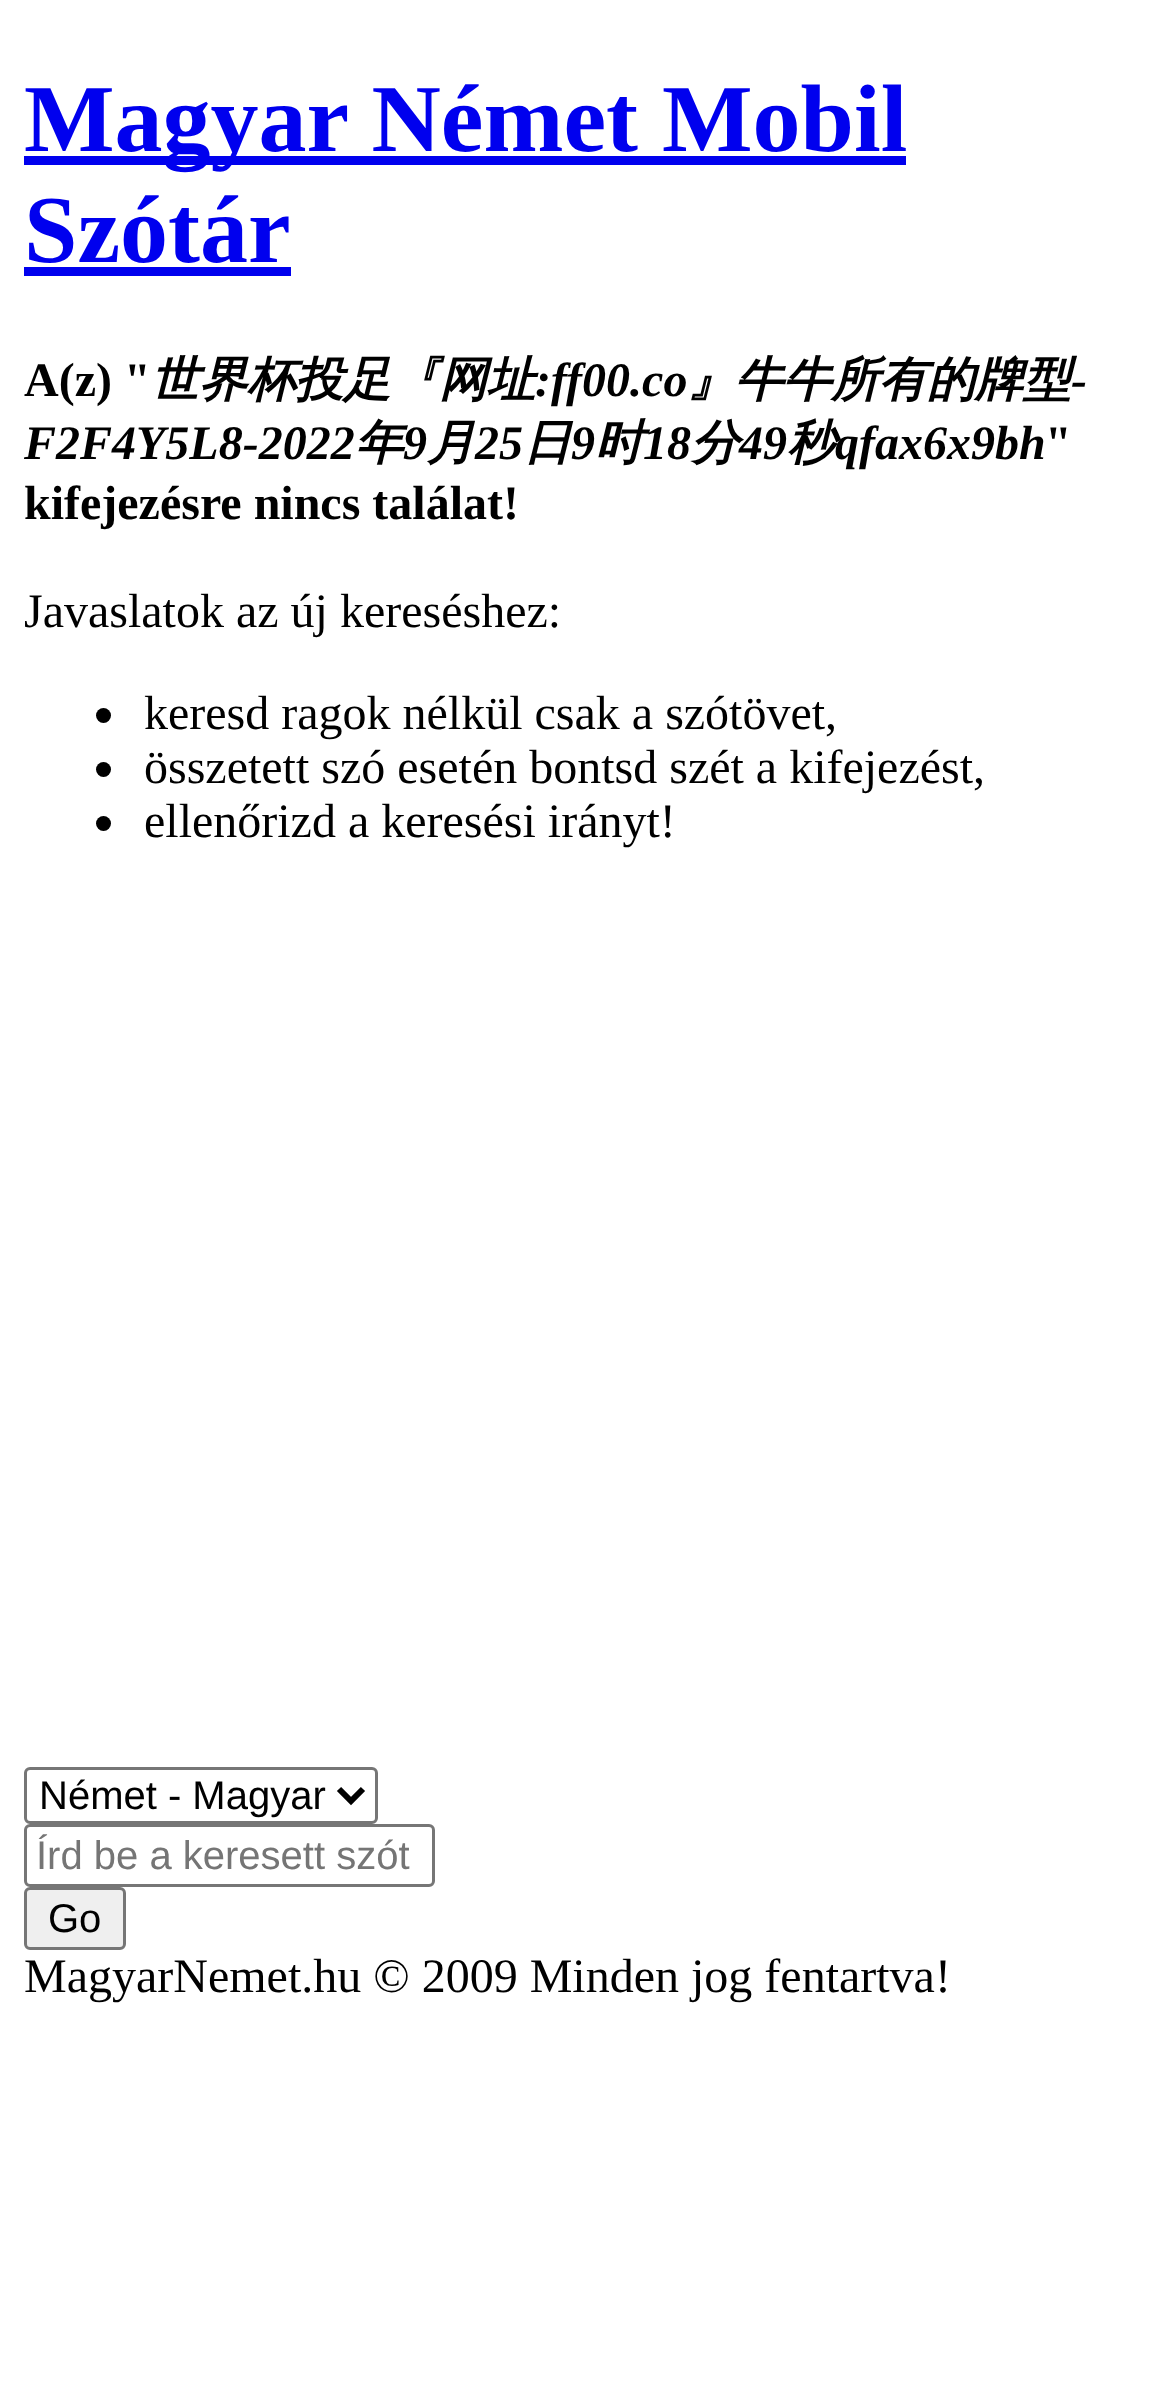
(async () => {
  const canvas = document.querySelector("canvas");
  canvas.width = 1170;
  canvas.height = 2398;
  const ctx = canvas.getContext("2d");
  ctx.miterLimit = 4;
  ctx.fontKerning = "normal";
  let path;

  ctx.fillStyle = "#ffffff";
  ctx.fillRect(0, 0, 1170, 2398);
  ctx.fillStyle = "#0000ee";
  ctx.fillRect(24, 156, 882, 9);
  ctx.fillRect(24, 267, 267, 9);
  ctx.fillStyle = "#000000";
  ctx.beginPath();
  ctx.arc(103.5, 715.5, 7.5, 0, Math.PI * 2);
  ctx.fill();
  ctx.beginPath();
  ctx.arc(103.5, 769.5, 7.5, 0, Math.PI * 2);
  ctx.fill();
  ctx.beginPath();
  ctx.arc(103.5, 823.5, 7.5, 0, Math.PI * 2);
  ctx.fill();
  ctx.beginPath();
  ctx.roundRect(25.5, 1768.5, 351, 54, 4.5);
  ctx.strokeStyle = "#767676";
  ctx.lineWidth = 3;
  ctx.stroke();
  path = new Path2D("M339 1789L351 1801L363 1789");
  ctx.strokeStyle = "#000000";
  ctx.lineWidth = 6;
  ctx.stroke(path);
  ctx.beginPath();
  ctx.roundRect(25.5, 1825.5, 408, 60, 4.5);
  ctx.strokeStyle = "#767676";
  ctx.lineWidth = 3;
  ctx.stroke();
  ctx.fillStyle = "#efefef";
  ctx.beginPath();
  ctx.roundRect(25.5, 1888.5, 99, 60, 4.5);
  ctx.fill();
  ctx.stroke();
  ctx.font = "bold 96px Liberation Serif";
  ctx.fillStyle = "#0000ee";
  ctx.fillText("Magyar Német Mobil", 24, 151);
  ctx.fillText("Szótár", 24, 262);
  ctx.font = "bold 48px Liberation Serif";
  ctx.fillStyle = "#000000";
  ctx.fillText("A(z) \"", 24, 396);
  ctx.font = "italic bold 48px WenQuanYi Zen Hei";
  ctx.fillText("世界杯投足『网址", 151, 396);
  ctx.font = "italic bold 48px Liberation Serif";
  ctx.fillText(":ff00.co", 535, 396);
  ctx.font = "italic bold 48px WenQuanYi Zen Hei";
  ctx.fillText("』牛牛所有的牌型", 687, 396);
  ctx.font = "italic bold 48px Liberation Serif";
  ctx.fillText("-", 1071, 396);
  ctx.fillText("F2F4Y5L8-2022", 24, 459);
  ctx.font = "italic bold 48px WenQuanYi Zen Hei";
  ctx.fillText("年", 355, 459);
  ctx.font = "italic bold 48px Liberation Serif";
  ctx.fillText("9", 403, 459);
  ctx.font = "italic bold 48px WenQuanYi Zen Hei";
  ctx.fillText("月", 427, 459);
  ctx.font = "italic bold 48px Liberation Serif";
  ctx.fillText("25", 475, 459);
  ctx.font = "italic bold 48px WenQuanYi Zen Hei";
  ctx.fillText("日", 523, 459);
  ctx.font = "italic bold 48px Liberation Serif";
  ctx.fillText("9", 571, 459);
  ctx.font = "italic bold 48px WenQuanYi Zen Hei";
  ctx.fillText("时", 595, 459);
  ctx.font = "italic bold 48px Liberation Serif";
  ctx.fillText("18", 643, 459);
  ctx.font = "italic bold 48px WenQuanYi Zen Hei";
  ctx.fillText("分", 691, 459);
  ctx.font = "italic bold 48px Liberation Serif";
  ctx.fillText("49", 739, 459);
  ctx.font = "italic bold 48px WenQuanYi Zen Hei";
  ctx.fillText("秒", 787, 459);
  ctx.font = "italic bold 48px Liberation Serif";
  ctx.fillText("qfax6x9bh", 835, 459);
  ctx.font = "bold 48px Liberation Serif";
  ctx.fillText("\"", 1045, 459);
  ctx.fillText("kifejezésre nincs találat!", 24, 519);
  ctx.font = "48px Liberation Serif";
  for (const [text, x, y] of [
    ["Javaslatok az új kereséshez:", 24, 627],
    ["keresd ragok nélkül csak a szótövet,", 144, 729],
    ["összetett szó esetén bontsd szét a kifejezést,", 144, 783],
    ["ellenőrizd a keresési irányt!", 144, 837],
  ]) {
    ctx.fillText(text, x, y);
  }
  ctx.font = "40px Liberation Sans";
  ctx.fillText("Német - Magyar", 39, 1809);
  ctx.fillStyle = "#757575";
  ctx.fillText("Írd be a keresett szót", 36, 1869);
  ctx.fillStyle = "#000000";
  ctx.fillText("Go", 48, 1932);
  ctx.font = "48px Liberation Serif";
  ctx.fillText("MagyarNemet.hu © 2009 Minden jog fentartva!", 24, 1992);
})();
